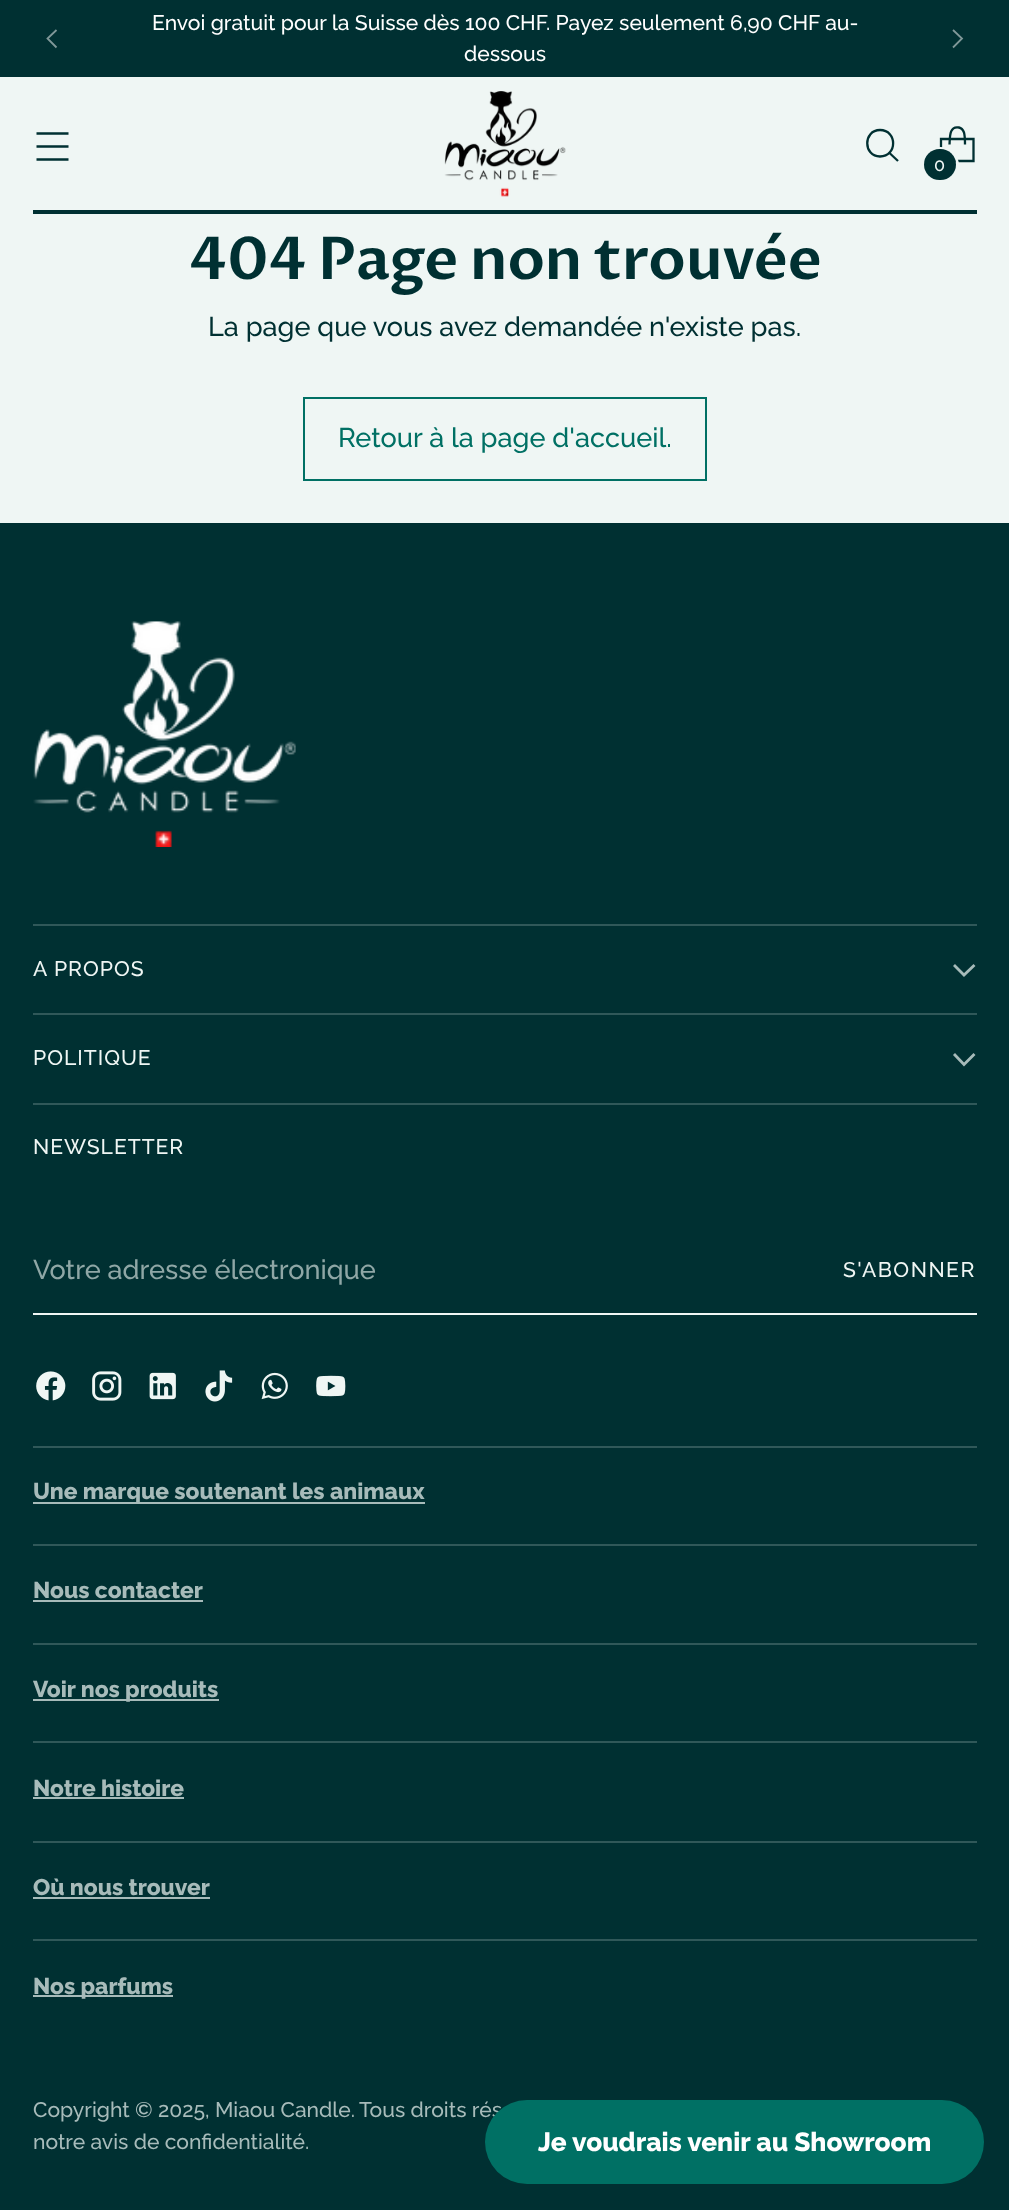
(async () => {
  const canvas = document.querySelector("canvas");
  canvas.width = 1009;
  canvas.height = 2210;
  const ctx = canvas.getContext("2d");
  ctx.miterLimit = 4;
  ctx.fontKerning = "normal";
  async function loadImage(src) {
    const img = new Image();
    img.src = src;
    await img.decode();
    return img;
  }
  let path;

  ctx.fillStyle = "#eff6f4";
  ctx.fillRect(0, 0, 1009, 2210);
  ctx.fillStyle = "#003032";
  ctx.fillRect(0, 0, 1009, 77);
  path = new Path2D("M56.5 30L47.5 38.5L56.5 47.5");
  ctx.strokeStyle = "#809899";
  ctx.lineWidth = 1.8;
  ctx.stroke(path);
  path = new Path2D("M953 47.5L962 38.5L953 30");
  ctx.stroke(path);
  ctx.fillRect(33, 210, 944, 4);
  path = new Path2D("M36.5 146.5H68.5M36.5 133.5H68.5M36.5 159.5H68.5");
  ctx.strokeStyle = "#003032";
  ctx.lineWidth = 2.3;
  ctx.stroke(path);
  ctx.drawImage(await loadImage("img/1.png"), 444, 91, 122, 106);
  path = new Path2D("M880 156.5C897.5 156.5 897.5 130 880 130C863 130 863 156.5 880 156.5Z");
  ctx.lineCap = "round";
  ctx.stroke(path);
  path = new Path2D("M889.5 153L898 161");
  ctx.lineCap = "butt";
  ctx.stroke(path);
  path = new Path2D("M965 144.5C965 140.5 965 136 964 132.5C963 130 961.5 128 959 127.5C949 125.5 950 138 949.5 144.5");
  ctx.lineJoin = "bevel";
  ctx.stroke(path);
  path = new Path2D("M973.5 161V139H941V161Z");
  ctx.lineJoin = "miter";
  ctx.stroke(path);
  ctx.beginPath();
  ctx.arc(940.5, 165.5, 17, 0, Math.PI * 2);
  ctx.strokeStyle = "#eff6f4";
  ctx.lineWidth = 3;
  ctx.stroke();
  ctx.beginPath();
  ctx.roundRect(924, 149, 32, 31, 15.5);
  ctx.fill();
  ctx.strokeStyle = "#007064";
  ctx.lineWidth = 2;
  ctx.strokeRect(304, 398, 402, 82);
  ctx.fillRect(0, 523, 1009, 1687);
  ctx.fillStyle = "#305859";
  ctx.fillRect(33, 924, 944, 2);
  ctx.drawImage(await loadImage("img/2.png"), 33, 621, 263, 226);
  ctx.fillRect(33, 1013, 944, 2);
  path = new Path2D("M954 965L964 975L974.5 965");
  ctx.strokeStyle = "#a7bbba";
  ctx.lineWidth = 2.8;
  ctx.stroke(path);
  ctx.fillRect(33, 1103, 944, 2);
  path = new Path2D("M954 1054L964 1064.5L974.5 1054");
  ctx.stroke(path);
  ctx.fillRect(33, 1446, 944, 2);
  ctx.fillStyle = "#eff6f4";
  ctx.fillRect(33, 1313, 944, 2);
  ctx.drawImage(await loadImage("img/3.png"), 36, 1371, 30, 30);
  ctx.drawImage(await loadImage("img/4.png"), 92, 1371, 30, 30);
  ctx.drawImage(await loadImage("img/5.png"), 149, 1372, 27, 28);
  ctx.drawImage(await loadImage("img/6.png"), 205, 1370, 28, 32);
  ctx.drawImage(await loadImage("img/7.png"), 261, 1372, 27, 28);
  ctx.drawImage(await loadImage("img/8.png"), 316, 1375, 30, 22);
  for (const [x, y, w, h, color] of [
    [33, 1544, 944, 2, "#305859"],
    [33, 1502, 392, 2, "#a7bbba"],
    [33, 1643, 944, 2, "#305859"],
    [33, 1600, 170, 2, "#a7bbba"],
    [33, 1741, 944, 2, "#305859"],
    [33, 1699, 186, 2, "#a7bbba"],
    [33, 1841, 944, 2, "#305859"],
    [33, 1797, 151, 2, "#a7bbba"],
    [33, 1939, 944, 2, "#305859"],
    [33, 1897, 177, 2, "#a7bbba"],
    [33, 1995, 140, 2, "#a7bbba"],
  ]) {
    ctx.fillStyle = color;
    ctx.fillRect(x, y, w, h);
  }
  ctx.font = "500 21.1px Raleway";
  ctx.fillStyle = "#ffffff";
  ctx.fillText("Envoi gratuit pour la Suisse dès 100 CHF. Payez seulement 6,90 CHF au-", 152, 30);
  ctx.fillText("dessous", 464, 61);
  ctx.font = "500 18px Raleway";
  ctx.fillStyle = "#eff6f4";
  ctx.fillText("0", 934, 171);
  ctx.letterSpacing = "-0.6px";
  ctx.font = "600 59px Proza Libre";
  ctx.fillStyle = "#003032";
  ctx.fillText("404 Page non trouvée", 189, 279);
  ctx.letterSpacing = "0px";
  ctx.font = "500 27.1px Raleway";
  ctx.fillText("La page que vous avez demandée n'existe pas.", 208, 336);
  ctx.fillStyle = "#007064";
  ctx.fillText("Retour à la page d'accueil.", 338, 447);
  ctx.letterSpacing = "1px";
  ctx.font = "500 21.1px Raleway";
  ctx.fillStyle = "#eff6f4";
  for (const [text, x, y] of [
    ["A PROPOS", 33, 976],
    ["POLITIQUE", 33, 1065],
    ["NEWSLETTER", 33, 1154],
  ]) {
    ctx.fillText(text, x, y);
  }
  ctx.letterSpacing = "0px";
  ctx.font = "500 27.1px Raleway";
  ctx.fillStyle = "#8fa7a6";
  ctx.fillText("Votre adresse électronique", 33, 1279);
  ctx.letterSpacing = "1.5px";
  ctx.font = "500 21.1px Raleway";
  ctx.fillStyle = "#eff6f4";
  ctx.fillText("S'ABONNER", 843, 1277);
  ctx.letterSpacing = "0px";
  ctx.font = "800 22.75px Raleway";
  ctx.fillStyle = "#a7bbba";
  for (const [text, x, y] of [
    ["Une marque soutenant les animaux", 33, 1499],
    ["Nous contacter", 33, 1598],
    ["Voir nos produits", 33, 1697],
    ["Notre histoire", 33, 1796],
    ["Où nous trouver", 33, 1895],
    ["Nos parfums", 33, 1994],
  ]) {
    ctx.fillText(text, x, y);
  }
  ctx.font = "500 21.1px Raleway";
  for (const [text, x, y] of [
    ["Copyright © 2025, Miaou Candle.", 33, 2117],
    ["Tous droits rés", 359, 2117],
    ["notre avis de confidentialité.", 33, 2149],
  ]) {
    ctx.fillText(text, x, y);
  }
  ctx.fillStyle = "#007064";
  ctx.beginPath();
  ctx.roundRect(485, 2100, 499, 84, 42);
  ctx.fill();
  ctx.font = "800 26.25px Raleway";
  ctx.fillStyle = "#ffffff";
  ctx.fillText("Je voudrais venir au Showroom", 538, 2151);
})();
